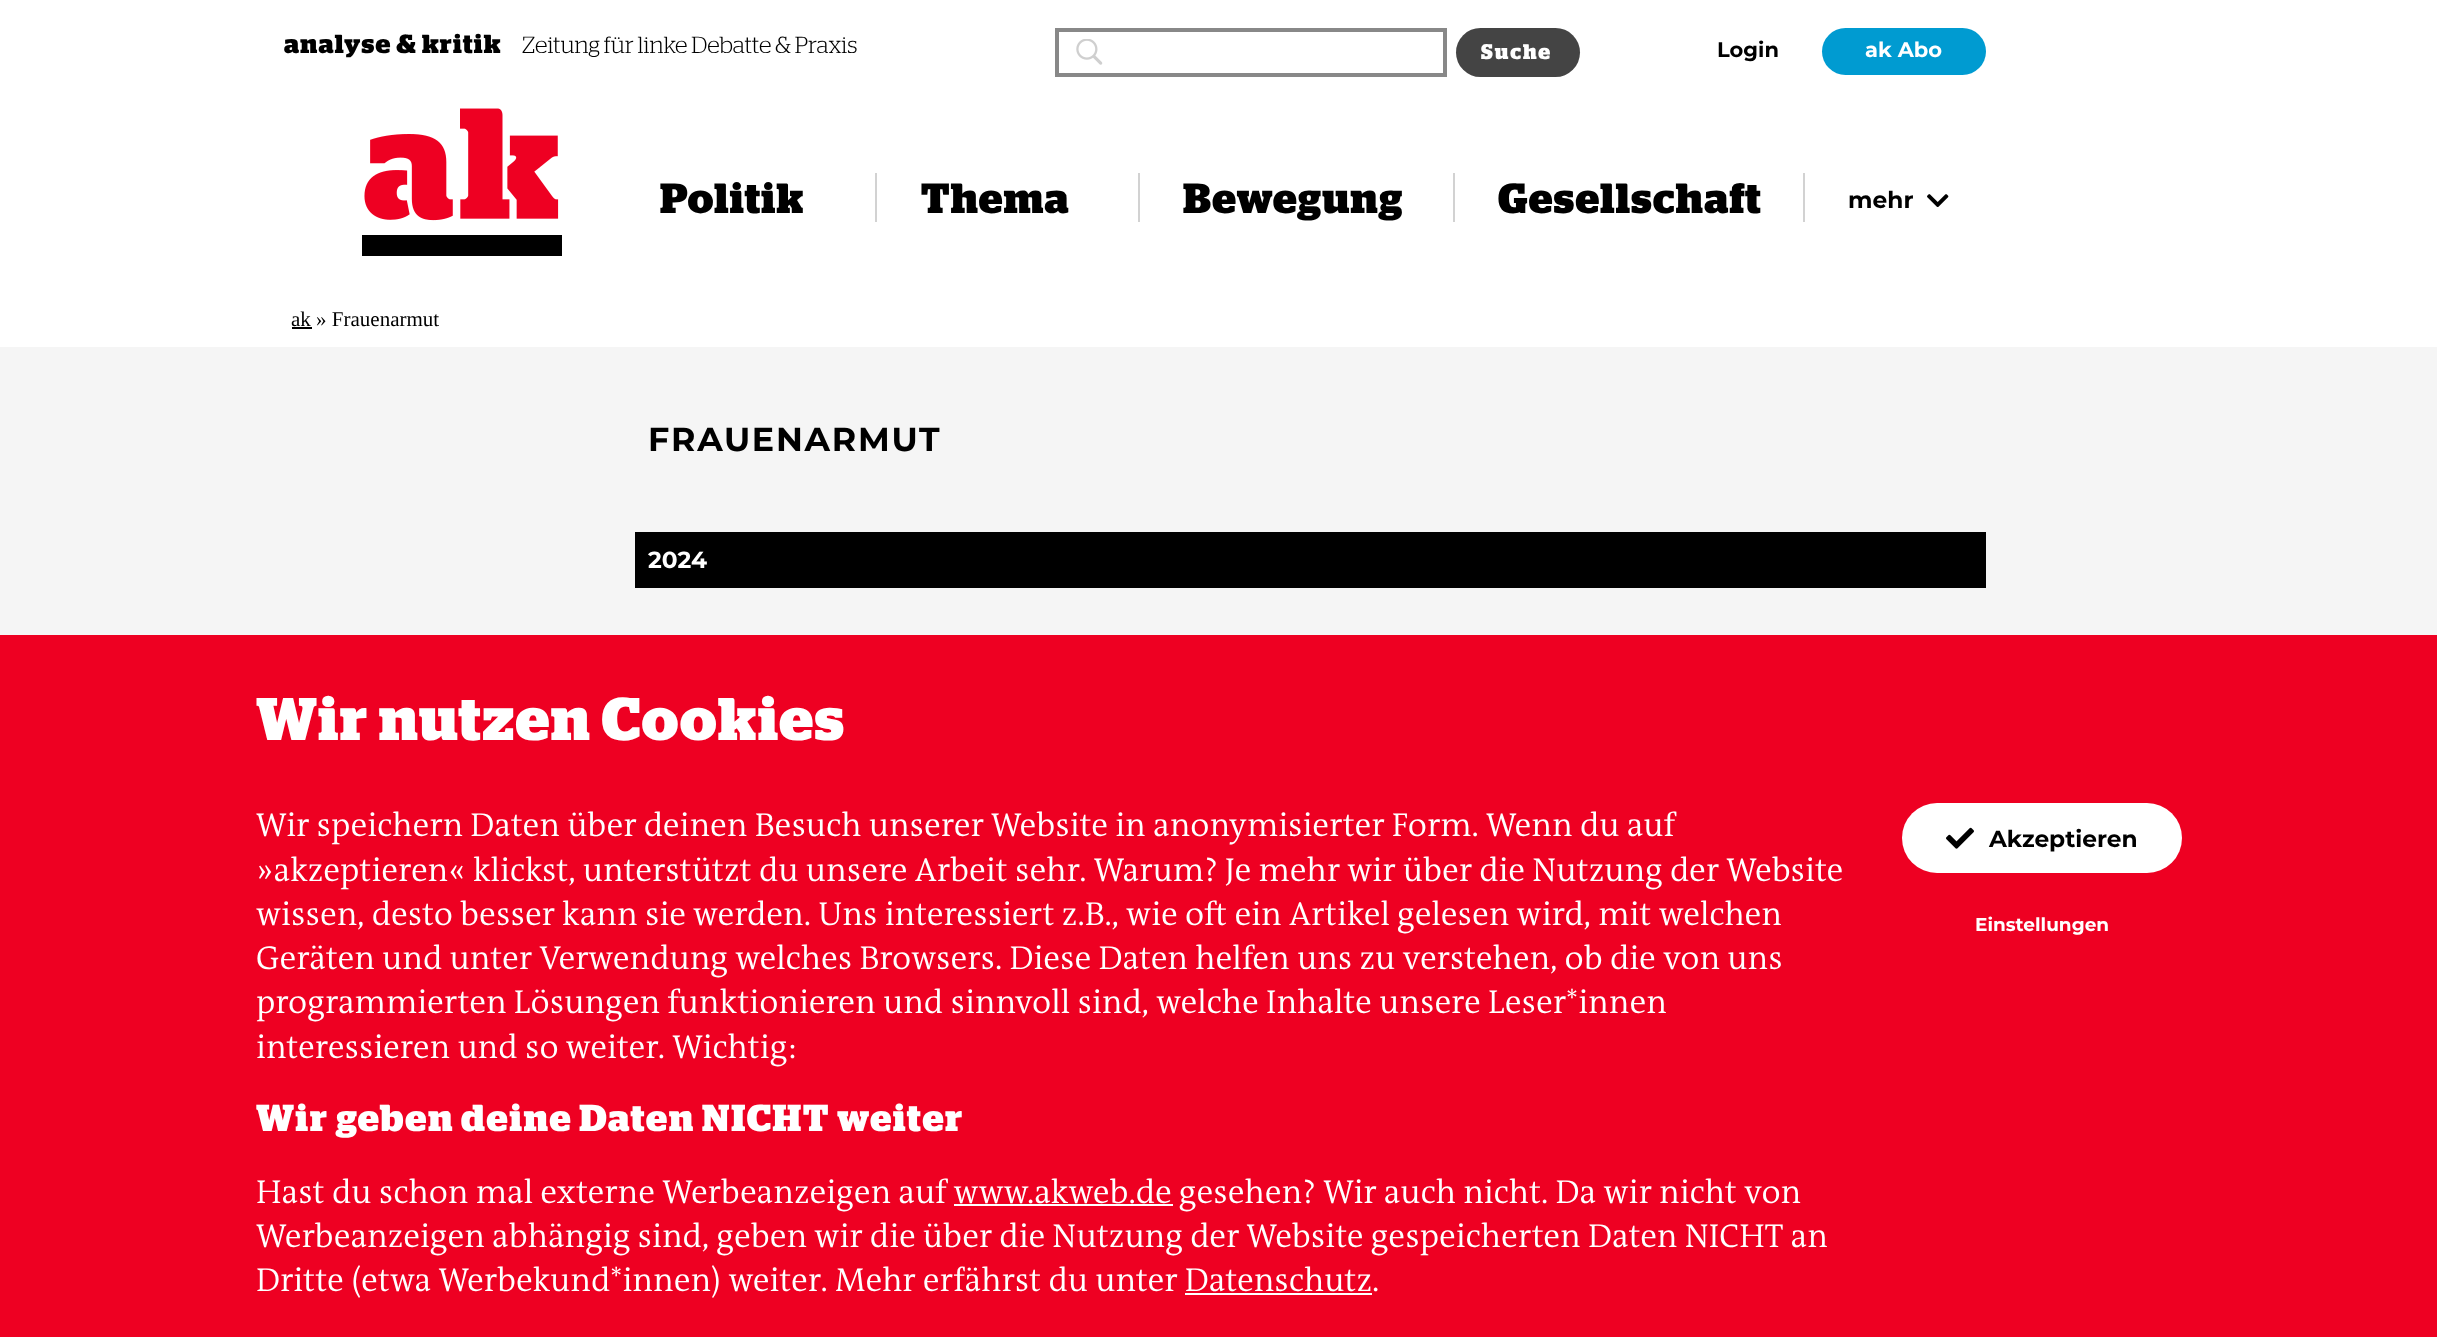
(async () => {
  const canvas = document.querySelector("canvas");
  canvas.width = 2437;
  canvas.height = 1337;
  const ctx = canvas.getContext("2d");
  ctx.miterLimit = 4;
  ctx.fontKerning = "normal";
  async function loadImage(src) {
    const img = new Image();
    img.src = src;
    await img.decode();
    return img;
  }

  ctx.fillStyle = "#ffffff";
  ctx.fillRect(0, 0, 2437, 1337);
  ctx.drawImage(await loadImage("img/1.png"), 1076, 39, 27, 26);
  ctx.strokeStyle = "#888888";
  ctx.lineWidth = 4;
  ctx.strokeRect(1057, 30, 388, 45);
  ctx.fillStyle = "#444444";
  ctx.beginPath();
  ctx.roundRect(1456, 28, 124, 49, 24.5);
  ctx.fill();
  ctx.fillStyle = "#009bd1";
  ctx.beginPath();
  ctx.roundRect(1822, 28, 164, 47, 23.5);
  ctx.fill();
  ctx.drawImage(await loadImage("img/2.png"), 364, 108, 195, 113);
  for (const [x, y, w, h, color] of [
    [362, 235, 200, 21, "#000000"],
    [875, 173, 2, 49, "#d2d2d2"],
    [1138, 173, 2, 49, "#d2d2d2"],
    [1453, 173, 2, 49, "#d2d2d2"],
    [1803, 173, 2, 49, "#d2d2d2"],
  ]) {
    ctx.fillStyle = color;
    ctx.fillRect(x, y, w, h);
  }
  ctx.drawImage(await loadImage("img/3.png"), 1927, 194, 22, 13);
  for (const [x, y, w, h, color] of [
    [292, 327, 20, 2, "#000000"],
    [0, 347, 2437, 288, "#f5f5f5"],
    [635, 532, 1351, 56, "#000000"],
    [0, 635, 2437, 702, "#ee0022"],
    [954, 1204, 219, 2, "#ffffff"],
    [1185, 1293, 187, 2, "#ffffff"],
  ]) {
    ctx.fillStyle = color;
    ctx.fillRect(x, y, w, h);
  }
  ctx.beginPath();
  ctx.roundRect(1902, 803, 280, 70, 35);
  ctx.fill();
  ctx.drawImage(await loadImage("img/4.png"), 1946, 827, 28, 22);
  ctx.letterSpacing = "1.25px";
  ctx.font = "bold 26.25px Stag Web";
  ctx.fillStyle = "#000000";
  ctx.fillText("analyse & kritik", 284, 53);
  ctx.letterSpacing = "0px";
  ctx.font = "300 23.3px Stag Web";
  ctx.fillText("Zeitung für linke Debatte & Praxis", 522, 53);
  ctx.letterSpacing = "2px";
  ctx.font = "bold 21px Stag Web";
  ctx.fillStyle = "#ffffff";
  ctx.fillText("Suche", 1481, 59);
  ctx.letterSpacing = "0px";
  ctx.font = "bold 21px Montserrat";
  ctx.fillStyle = "#000000";
  ctx.fillText("Login", 1717, 57);
  ctx.fillStyle = "#ffffff";
  ctx.fillText("ak Abo", 1865, 57);
  ctx.letterSpacing = "1.25px";
  ctx.font = "bold 42px Stag Web";
  ctx.fillStyle = "#000000";
  for (const [text, x, y] of [
    ["Politik", 660, 213],
    ["Thema", 921, 213],
    ["Bewegung", 1183, 213],
    ["Gesellschaft", 1498, 213],
  ]) {
    ctx.fillText(text, x, y);
  }
  ctx.letterSpacing = "0px";
  ctx.font = "bold 23.3px Montserrat";
  ctx.fillText("mehr", 1848, 208);
  ctx.font = "21px Liberation Serif";
  ctx.fillText("ak » Frauenarmut", 291, 326);
  ctx.letterSpacing = "1.75px";
  ctx.font = "bold 33.25px Montserrat";
  ctx.fillText("FRAUENARMUT", 648, 451);
  ctx.letterSpacing = "0px";
  ctx.font = "bold 23.3px Montserrat";
  ctx.fillStyle = "#ffffff";
  ctx.fillText("2024", 648, 568);
  ctx.letterSpacing = "1.75px";
  ctx.font = "bold 60px Stag Web";
  ctx.fillText("Wir nutzen Cookies", 256, 740);
  ctx.letterSpacing = "0px";
  ctx.font = "300 33.25px 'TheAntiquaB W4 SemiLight'";
  for (const [text, x, y] of [
    ["Wir speichern Daten über deinen Besuch unserer Website in anonymisierter Form. Wenn du auf", 256, 836],
    ["»akzeptieren« klickst, unterstützt du unsere Arbeit sehr. Warum? Je mehr wir über die Nutzung der Website", 256, 881],
    ["wissen, desto besser kann sie werden. Uns interessiert z.B., wie oft ein Artikel gelesen wird, mit welchen", 256, 925],
    ["Geräten und unter Verwendung welches Browsers. Diese Daten helfen uns zu verstehen, ob die von uns", 256, 969],
    ["programmierten Lösungen funktionieren und sinnvoll sind, welche Inhalte unsere Leser*innen", 256, 1013],
    ["interessieren und so weiter. Wichtig:", 256, 1058],
  ]) {
    ctx.fillText(text, x, y);
  }
  ctx.letterSpacing = "1.85px";
  ctx.font = "bold 37.4px Stag Web";
  ctx.fillText("Wir geben deine Daten NICHT weiter", 256, 1131);
  ctx.letterSpacing = "0px";
  ctx.font = "300 33.25px 'TheAntiquaB W4 SemiLight'";
  for (const [text, x, y] of [
    ["Hast du schon mal externe Werbeanzeigen auf www.akweb.de gesehen? Wir auch nicht. Da wir nicht von", 256, 1203],
    ["Werbeanzeigen abhängig sind, geben wir die über die Nutzung der Website gespeicherten Daten NICHT an", 256, 1247],
    ["Dritte (etwa Werbekund*innen) weiter. Mehr erfährst du unter Datenschutz.", 256, 1291],
  ]) {
    ctx.fillText(text, x, y);
  }
  ctx.font = "bold 23.3px Montserrat";
  ctx.fillStyle = "#000000";
  ctx.fillText("Akzeptieren", 1989, 847);
  ctx.font = "bold 18.5px Montserrat";
  ctx.fillStyle = "#ffffff";
  ctx.fillText("Einstellungen", 1975, 931);
})();
